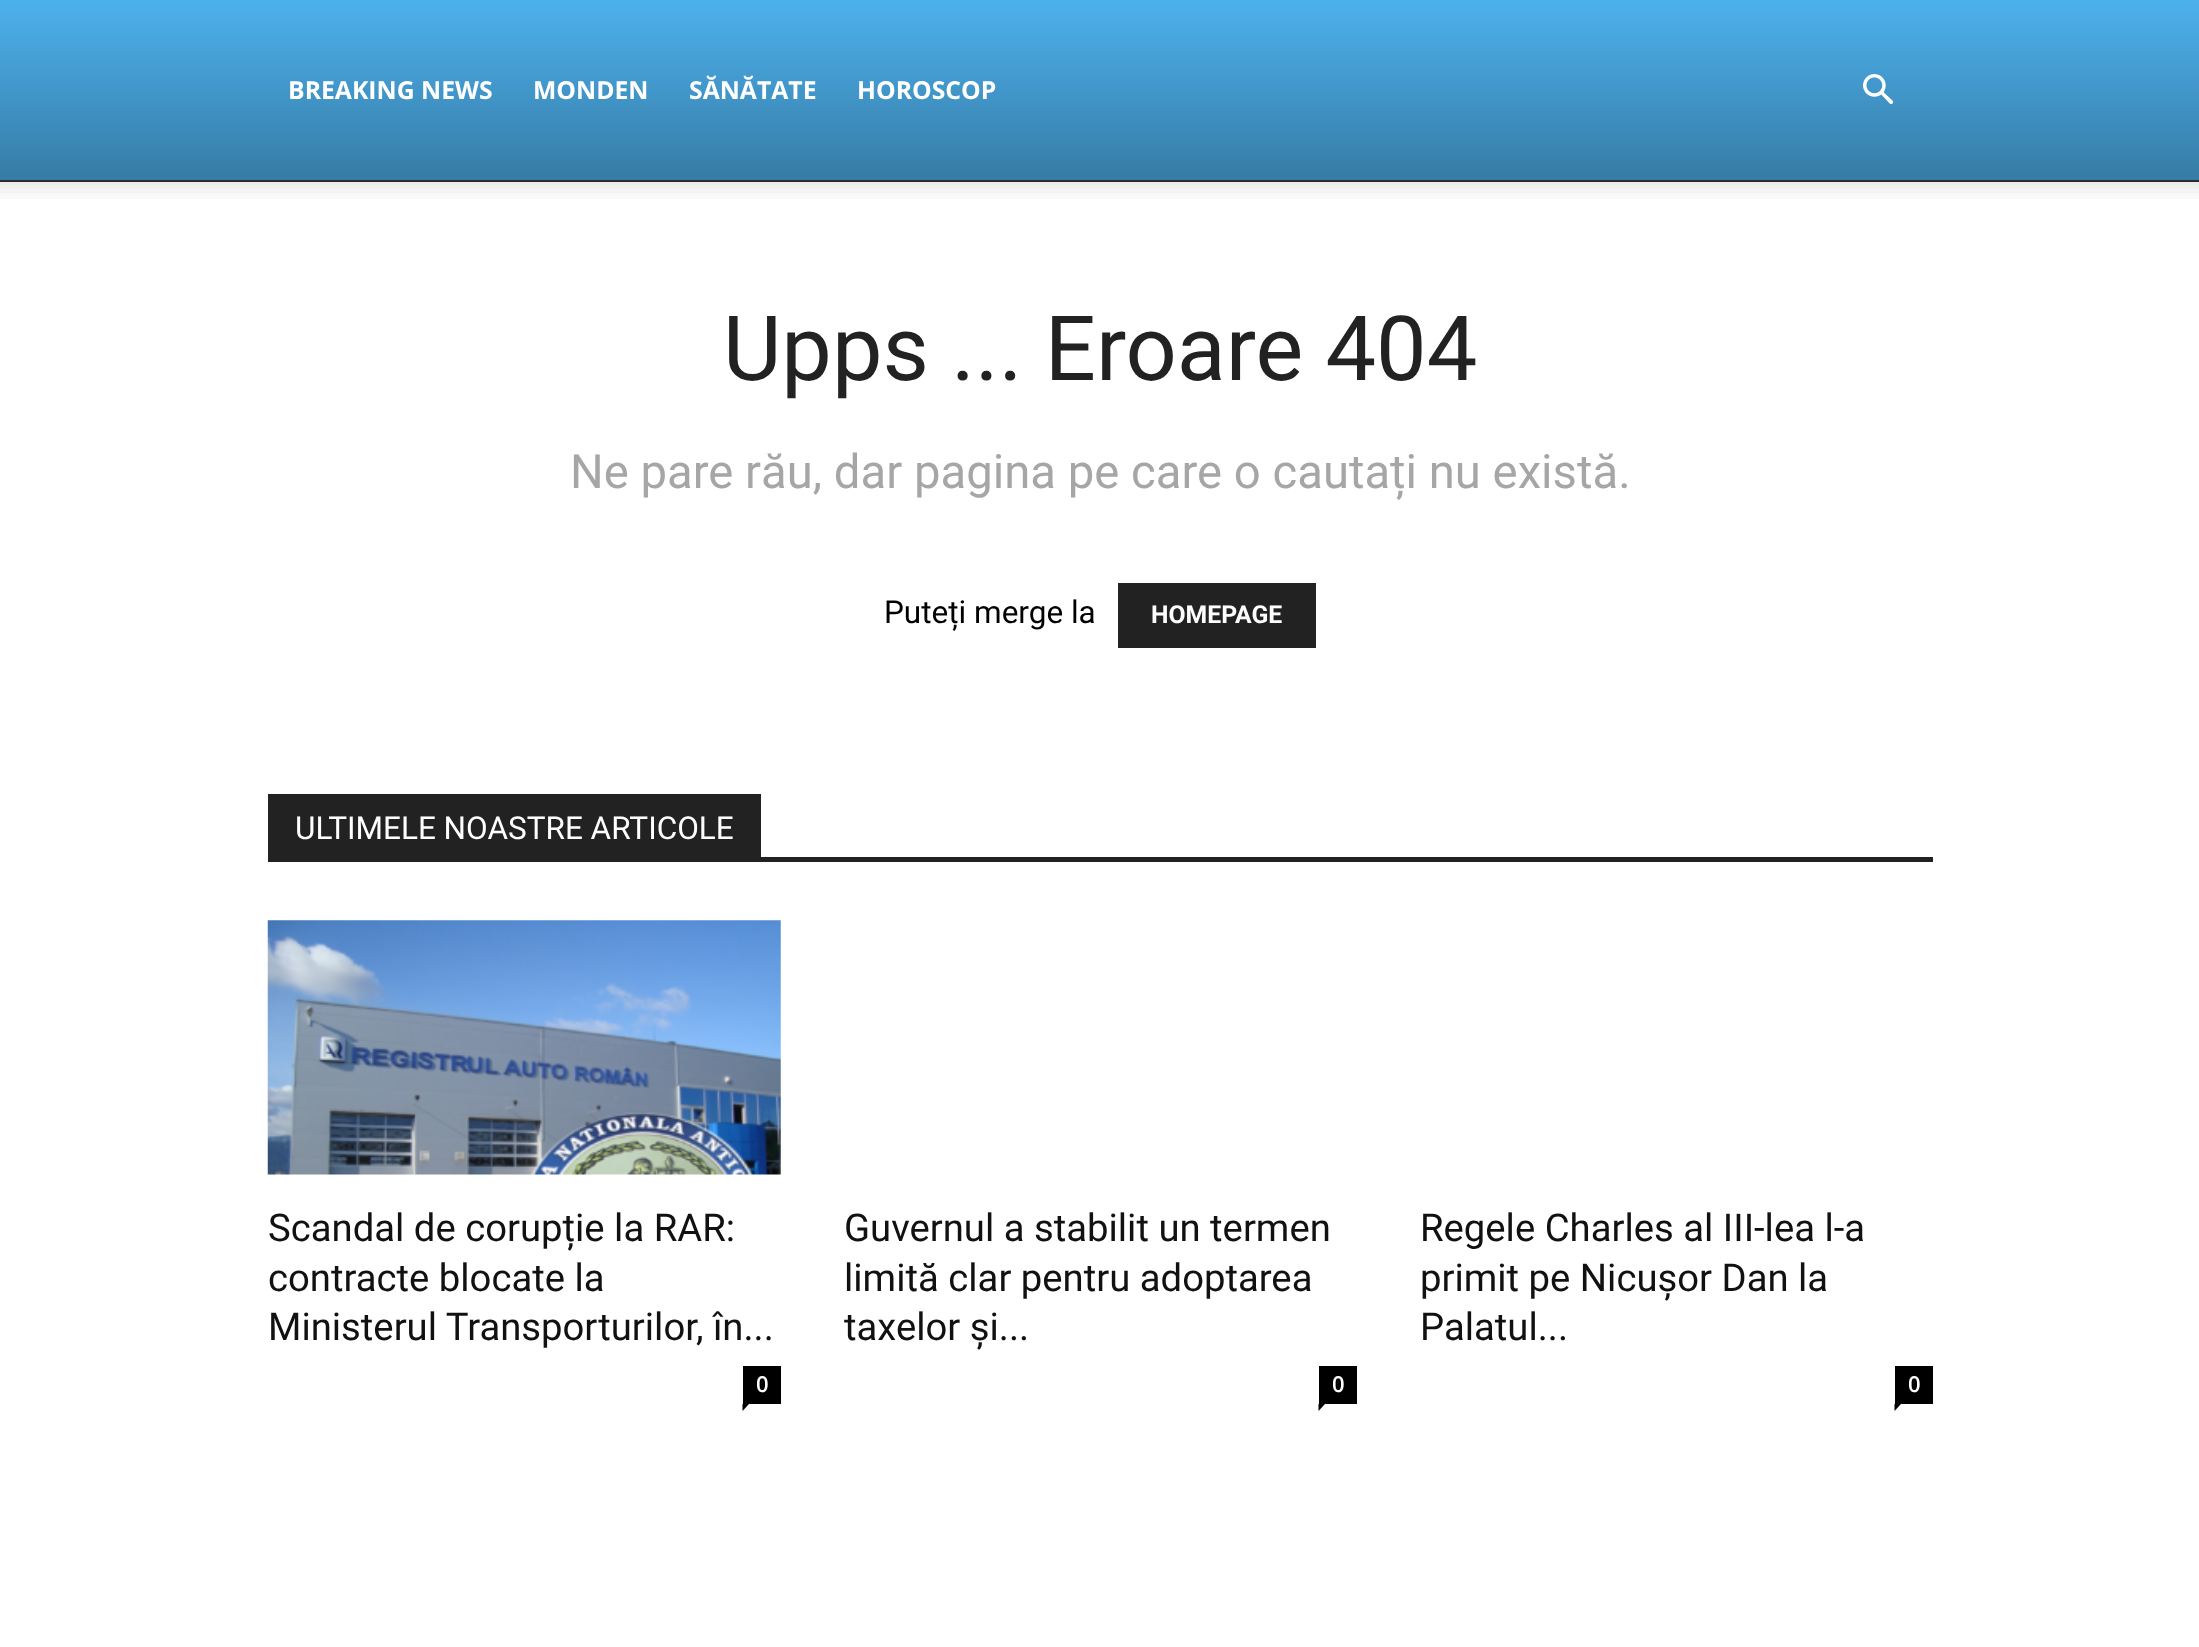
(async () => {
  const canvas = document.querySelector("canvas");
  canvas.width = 2199;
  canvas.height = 1647;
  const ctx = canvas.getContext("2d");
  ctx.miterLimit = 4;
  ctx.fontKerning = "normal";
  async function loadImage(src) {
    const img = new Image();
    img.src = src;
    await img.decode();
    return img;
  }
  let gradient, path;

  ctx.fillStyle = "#ffffff";
  ctx.fillRect(0, 0, 2199, 1647);
  gradient = ctx.createLinearGradient(1100, 0, 1100, 180);
  gradient.addColorStop(0, "#4db1ed");
  gradient.addColorStop(1, "#367ca6");
  ctx.fillStyle = gradient;
  ctx.fillRect(0, 0, 2199, 180);
  ctx.drawImage(await loadImage("img/1.png"), 1863, 74, 31, 30);
  ctx.drawImage(await loadImage("img/2.png"), 0, 182, 2199, 17);
  for (const [x, y, w, h, color] of [
    [0, 180, 2199, 2, "#2b2b2b"],
    [1118, 583, 198, 65, "#222222"],
    [268, 857, 1665, 5, "#222222"],
    [268, 794, 493, 63, "#222222"],
  ]) {
    ctx.fillStyle = color;
    ctx.fillRect(x, y, w, h);
  }
  ctx.drawImage(await loadImage("img/3.png"), 267, 920, 514, 255);
  ctx.fillStyle = "#000000";
  ctx.fillRect(743, 1366, 38, 38);
  path = new Path2D("M742.5 1404H749L742.5 1411Z");
  ctx.fill(path);
  ctx.fillRect(1319, 1366, 38, 38);
  path = new Path2D("M1318.5 1404H1325L1318.5 1411Z");
  ctx.fill(path);
  ctx.fillRect(1895, 1366, 38, 38);
  path = new Path2D("M1894.5 1404H1901L1894.5 1411Z");
  ctx.fill(path);
  ctx.font = "bold 24.75px Open Sans";
  ctx.fillStyle = "#ffffff";
  for (const [text, x, y] of [
    ["BREAKING NEWS", 288, 99],
    ["MONDEN", 533, 99],
    ["SĂNĂTATE", 689, 99],
    ["HOROSCOP", 857, 99],
  ]) {
    ctx.fillText(text, x, y);
  }
  ctx.font = "90px Roboto";
  ctx.fillStyle = "#222222";
  ctx.fillText("Upps ... Eroare 404", 723, 380);
  ctx.font = "47.25px Roboto";
  ctx.fillStyle = "#a6a6a6";
  ctx.fillText("Ne pare rău, dar pagina pe care o cautați nu există.", 570, 488);
  ctx.font = "31.5px Roboto";
  ctx.fillStyle = "#000000";
  ctx.fillText("Puteți merge la", 884, 623);
  ctx.font = "bold 24.75px Roboto";
  ctx.fillStyle = "#ffffff";
  ctx.fillText("HOMEPAGE", 1151, 623);
  ctx.font = "31.5px Roboto";
  ctx.fillText("ULTIMELE NOASTRE ARTICOLE", 295, 839);
  ctx.font = "38.25px Roboto";
  ctx.fillStyle = "#111111";
  for (const [text, x, y] of [
    ["Scandal de corupție la RAR:", 268, 1241],
    ["contracte blocate la", 268, 1291],
    ["Ministerul Transporturilor, în...", 268, 1340],
  ]) {
    ctx.fillText(text, x, y);
  }
  ctx.font = "600 22px Open Sans";
  ctx.fillStyle = "#ffffff";
  ctx.fillText("0", 756, 1392);
  ctx.font = "38.25px Roboto";
  ctx.fillStyle = "#111111";
  for (const [text, x, y] of [
    ["Guvernul a stabilit un termen", 844, 1241],
    ["limită clar pentru adoptarea", 844, 1291],
    ["taxelor și...", 844, 1340],
  ]) {
    ctx.fillText(text, x, y);
  }
  ctx.font = "600 22px Open Sans";
  ctx.fillStyle = "#ffffff";
  ctx.fillText("0", 1332, 1392);
  ctx.font = "38.25px Roboto";
  ctx.fillStyle = "#111111";
  for (const [text, x, y] of [
    ["Regele Charles al III-lea l-a", 1420, 1241],
    ["primit pe Nicușor Dan la", 1420, 1291],
    ["Palatul...", 1420, 1340],
  ]) {
    ctx.fillText(text, x, y);
  }
  ctx.font = "600 22px Open Sans";
  ctx.fillStyle = "#ffffff";
  ctx.fillText("0", 1908, 1392);
})();
